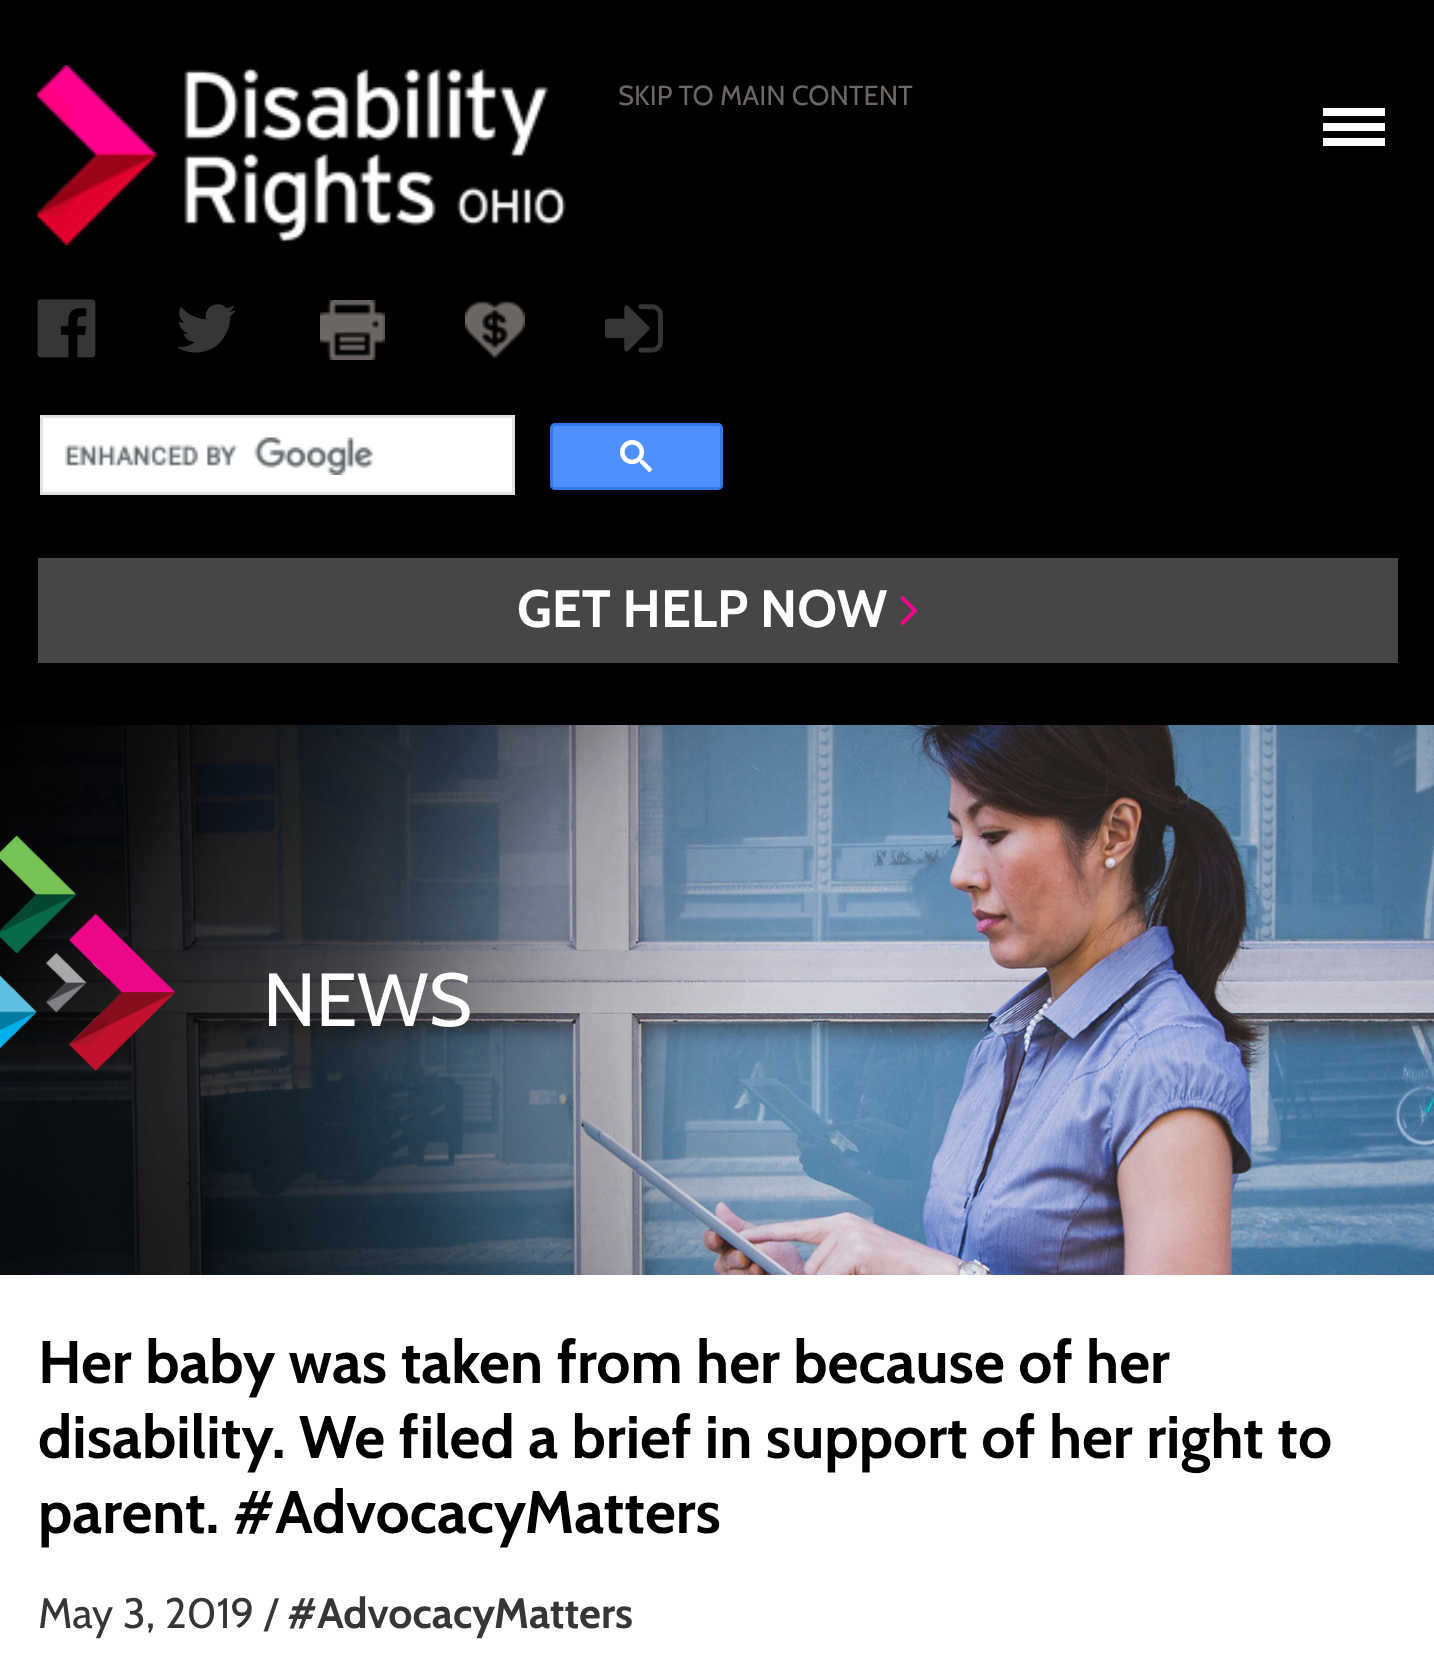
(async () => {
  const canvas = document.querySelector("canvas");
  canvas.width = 1434;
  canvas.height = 1670;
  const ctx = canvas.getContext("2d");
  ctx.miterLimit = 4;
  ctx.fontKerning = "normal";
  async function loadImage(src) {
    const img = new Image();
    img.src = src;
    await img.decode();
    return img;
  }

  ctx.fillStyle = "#ffffff";
  ctx.fillRect(0, 0, 1434, 1670);
  ctx.fillStyle = "#000000";
  ctx.fillRect(0, 0, 1434, 725);
  ctx.drawImage(await loadImage("img/1.png"), 37, 65, 529, 180);
  for (const [x, y, w, h, color] of [
    [1323, 123, 62, 8, "#ffffff"],
    [1323, 108, 62, 8, "#ffffff"],
    [1323, 138, 62, 8, "#ffffff"],
  ]) {
    ctx.fillStyle = color;
    ctx.fillRect(x, y, w, h);
  }
  ctx.drawImage(await loadImage("img/2.png"), 37, 299, 59, 59);
  ctx.drawImage(await loadImage("img/3.png"), 177, 304, 59, 49);
  ctx.drawImage(await loadImage("img/4.png"), 320, 300, 65, 60);
  ctx.drawImage(await loadImage("img/5.png"), 465, 300, 60, 59);
  ctx.drawImage(await loadImage("img/6.png"), 605, 304, 58, 49);
  ctx.beginPath();
  ctx.rect(41.5, 416.5, 472, 77);
  ctx.fill();
  ctx.strokeStyle = "#dfe1e5";
  ctx.lineWidth = 3;
  ctx.stroke();
  ctx.drawImage(await loadImage("img/7.png"), 65, 437, 308, 38);
  ctx.fillStyle = "#4d90fe";
  ctx.beginPath();
  ctx.roundRect(551.5, 424.5, 170, 64, 3.5);
  ctx.fill();
  ctx.strokeStyle = "#3079ed";
  ctx.stroke();
  ctx.drawImage(await loadImage("img/8.png"), 620, 440, 33, 33);
  ctx.fillStyle = "#464646";
  ctx.fillRect(38, 558, 1360, 105);
  ctx.drawImage(await loadImage("img/9.png"), 900, 596, 18, 30);
  ctx.drawImage(await loadImage("img/10.png"), 0, 725, 1434, 550);
  ctx.drawImage(await loadImage("img/11.png"), 0, 835, 175, 236);
  ctx.font = "27.5px Cabin";
  ctx.fillStyle = "#6b6564";
  ctx.fillText("SKIP TO MAIN CONTENT", 618, 105);
  ctx.font = "bold 52.5px Cabin";
  ctx.fillStyle = "#ffffff";
  ctx.fillText("GET HELP NOW", 517, 627);
  ctx.font = "75px Cabin";
  ctx.fillText("NEWS", 263, 1026);
  ctx.font = "bold 60px Cabin";
  ctx.fillStyle = "#000000";
  for (const [text, x, y] of [
    ["Her baby was taken from her because of her", 38, 1383],
    ["disability. We filed a brief in support of her right to", 38, 1458],
    ["parent. #AdvocacyMatters", 38, 1533],
  ]) {
    ctx.fillText(text, x, y);
  }
  ctx.font = "42.5px Cabin";
  ctx.fillStyle = "#363636";
  ctx.fillText("May 3, 2019 /", 38, 1628);
  ctx.font = "bold 42.5px Cabin";
  ctx.fillText("#AdvocacyMatters", 287, 1628);
})();
